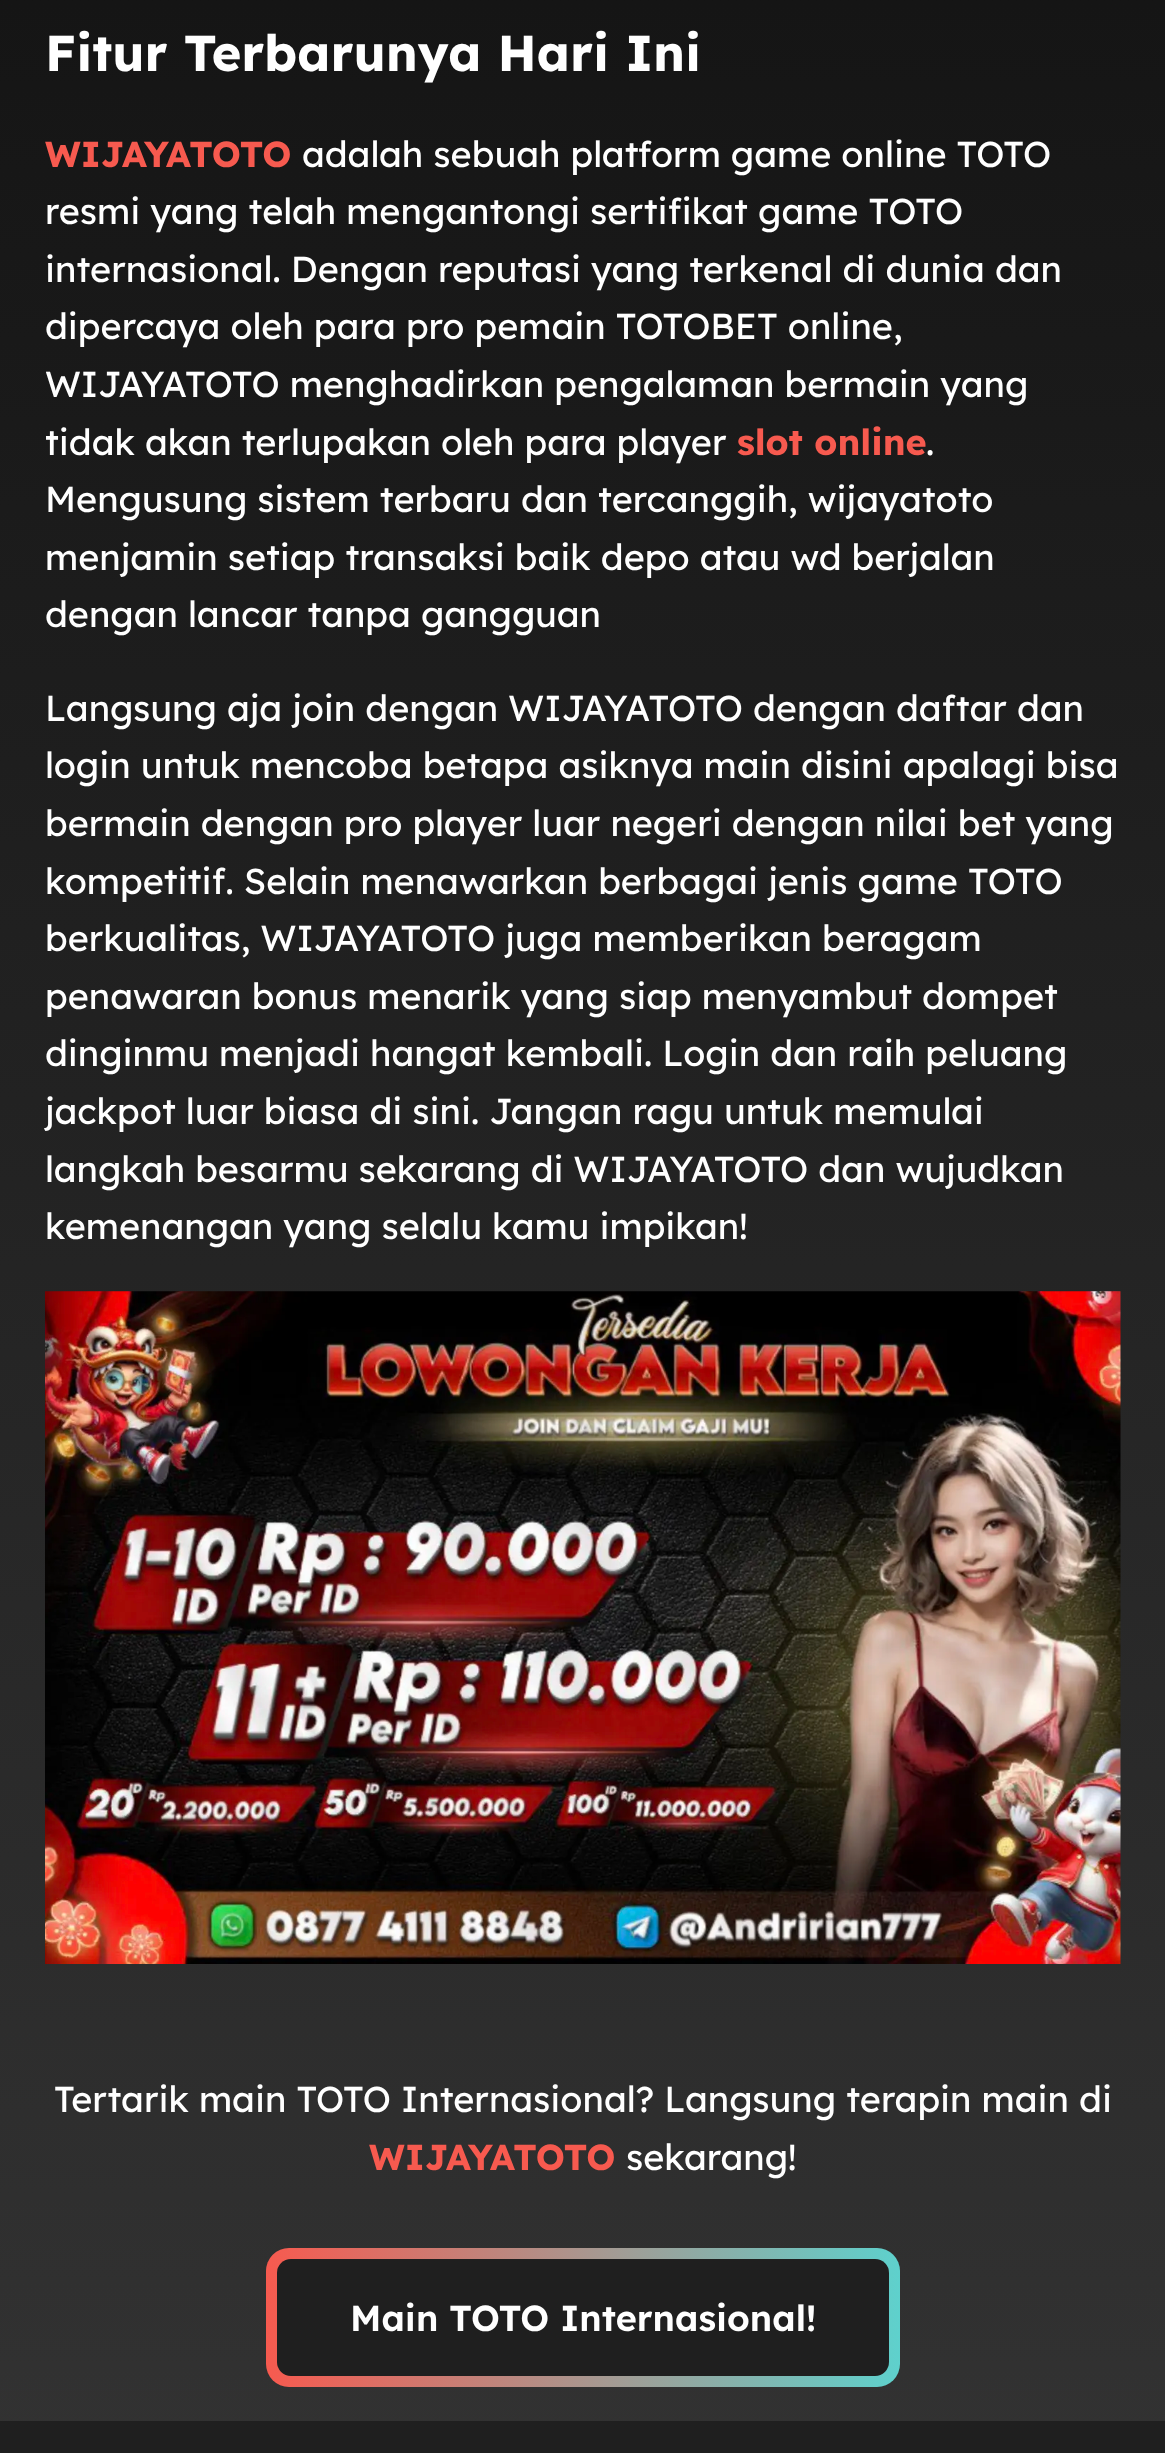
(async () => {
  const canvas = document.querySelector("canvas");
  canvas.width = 1165;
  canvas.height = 2453;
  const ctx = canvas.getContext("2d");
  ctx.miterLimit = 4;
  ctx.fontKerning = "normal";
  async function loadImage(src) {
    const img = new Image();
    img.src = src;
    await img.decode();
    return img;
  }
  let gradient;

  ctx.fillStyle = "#ffffff";
  ctx.fillRect(0, 0, 1165, 2453);
  gradient = ctx.createLinearGradient(583, -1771, 583, 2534);
  gradient.addColorStop(0, "#000000");
  gradient.addColorStop(1, "#333333");
  ctx.fillStyle = gradient;
  ctx.fillRect(0, 0, 1165, 2421);
  ctx.drawImage(await loadImage("img/1.png"), 45, 1291, 1076, 673);
  gradient = ctx.createLinearGradient(266, 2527, 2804, 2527);
  gradient.addColorStop(0, "#f75a4f");
  gradient.addColorStop(0.33, "#2df7f5");
  gradient.addColorStop(0.67, "#f7e302");
  gradient.addColorStop(1, "#f75a4f");
  ctx.fillStyle = gradient;
  ctx.beginPath();
  ctx.roundRect(266, 2248, 634, 139, 23);
  ctx.fill();
  ctx.fillStyle = "#1f1f1f";
  ctx.beginPath();
  ctx.roundRect(277, 2259, 612, 117, 14);
  ctx.fill();
  ctx.fillRect(0, 2421, 1165, 32);
  ctx.font = "bold 50.4px Lexend Deca";
  ctx.fillStyle = "#ffffff";
  ctx.fillText("Fitur Terbarunya Hari Ini", 45, 71);
  ctx.font = "bold 36px Lexend Deca";
  ctx.fillStyle = "#f75a4f";
  ctx.fillText("WIJAYATOTO", 45, 167);
  ctx.font = "36px Lexend Deca";
  ctx.fillStyle = "#ffffff";
  for (const [text, x, y] of [
    ["adalah sebuah platform game online TOTO", 302, 167],
    ["resmi yang telah mengantongi sertifikat game TOTO", 45, 224],
    ["internasional. Dengan reputasi yang terkenal di dunia dan", 45, 282],
    ["dipercaya oleh para pro pemain TOTOBET online,", 45, 339],
    ["WIJAYATOTO menghadirkan pengalaman bermain yang", 45, 397],
    ["tidak akan terlupakan oleh para player", 45, 455],
  ]) {
    ctx.fillText(text, x, y);
  }
  ctx.font = "bold 36px Lexend Deca";
  ctx.fillStyle = "#f75a4f";
  ctx.fillText("slot online", 737, 455);
  ctx.font = "36px Lexend Deca";
  ctx.fillStyle = "#ffffff";
  for (const [text, x, y] of [
    [".", 926, 455],
    ["Mengusung sistem terbaru dan tercanggih, wijayatoto", 45, 512],
    ["menjamin setiap transaksi baik depo atau wd berjalan", 45, 570],
    ["dengan lancar tanpa gangguan", 45, 627],
    ["Langsung aja join dengan WIJAYATOTO dengan daftar dan", 45, 721],
    ["login untuk mencoba betapa asiknya main disini apalagi bisa", 45, 778],
    ["bermain dengan pro player luar negeri dengan nilai bet yang", 45, 836],
    ["kompetitif. Selain menawarkan berbagai jenis game TOTO", 45, 894],
    ["berkualitas, WIJAYATOTO juga memberikan beragam", 45, 951],
    ["penawaran bonus menarik yang siap menyambut dompet", 45, 1009],
    ["dinginmu menjadi hangat kembali. Login dan raih peluang", 45, 1066],
    ["jackpot luar biasa di sini. Jangan ragu untuk memulai", 45, 1124],
    ["langkah besarmu sekarang di WIJAYATOTO dan wujudkan", 45, 1182],
    ["kemenangan yang selalu kamu impikan!", 45, 1239],
    ["Tertarik main TOTO Internasional? Langsung terapin main di", 54, 2112],
  ]) {
    ctx.fillText(text, x, y);
  }
  ctx.font = "bold 36px Lexend Deca";
  ctx.fillStyle = "#f75a4f";
  ctx.fillText("WIJAYATOTO", 369, 2170);
  ctx.font = "36px Lexend Deca";
  ctx.fillStyle = "#ffffff";
  ctx.fillText("sekarang!", 626, 2170);
  ctx.font = "600 36px Lexend Deca";
  ctx.fillText("Main TOTO Internasional!", 350, 2331);
})();
